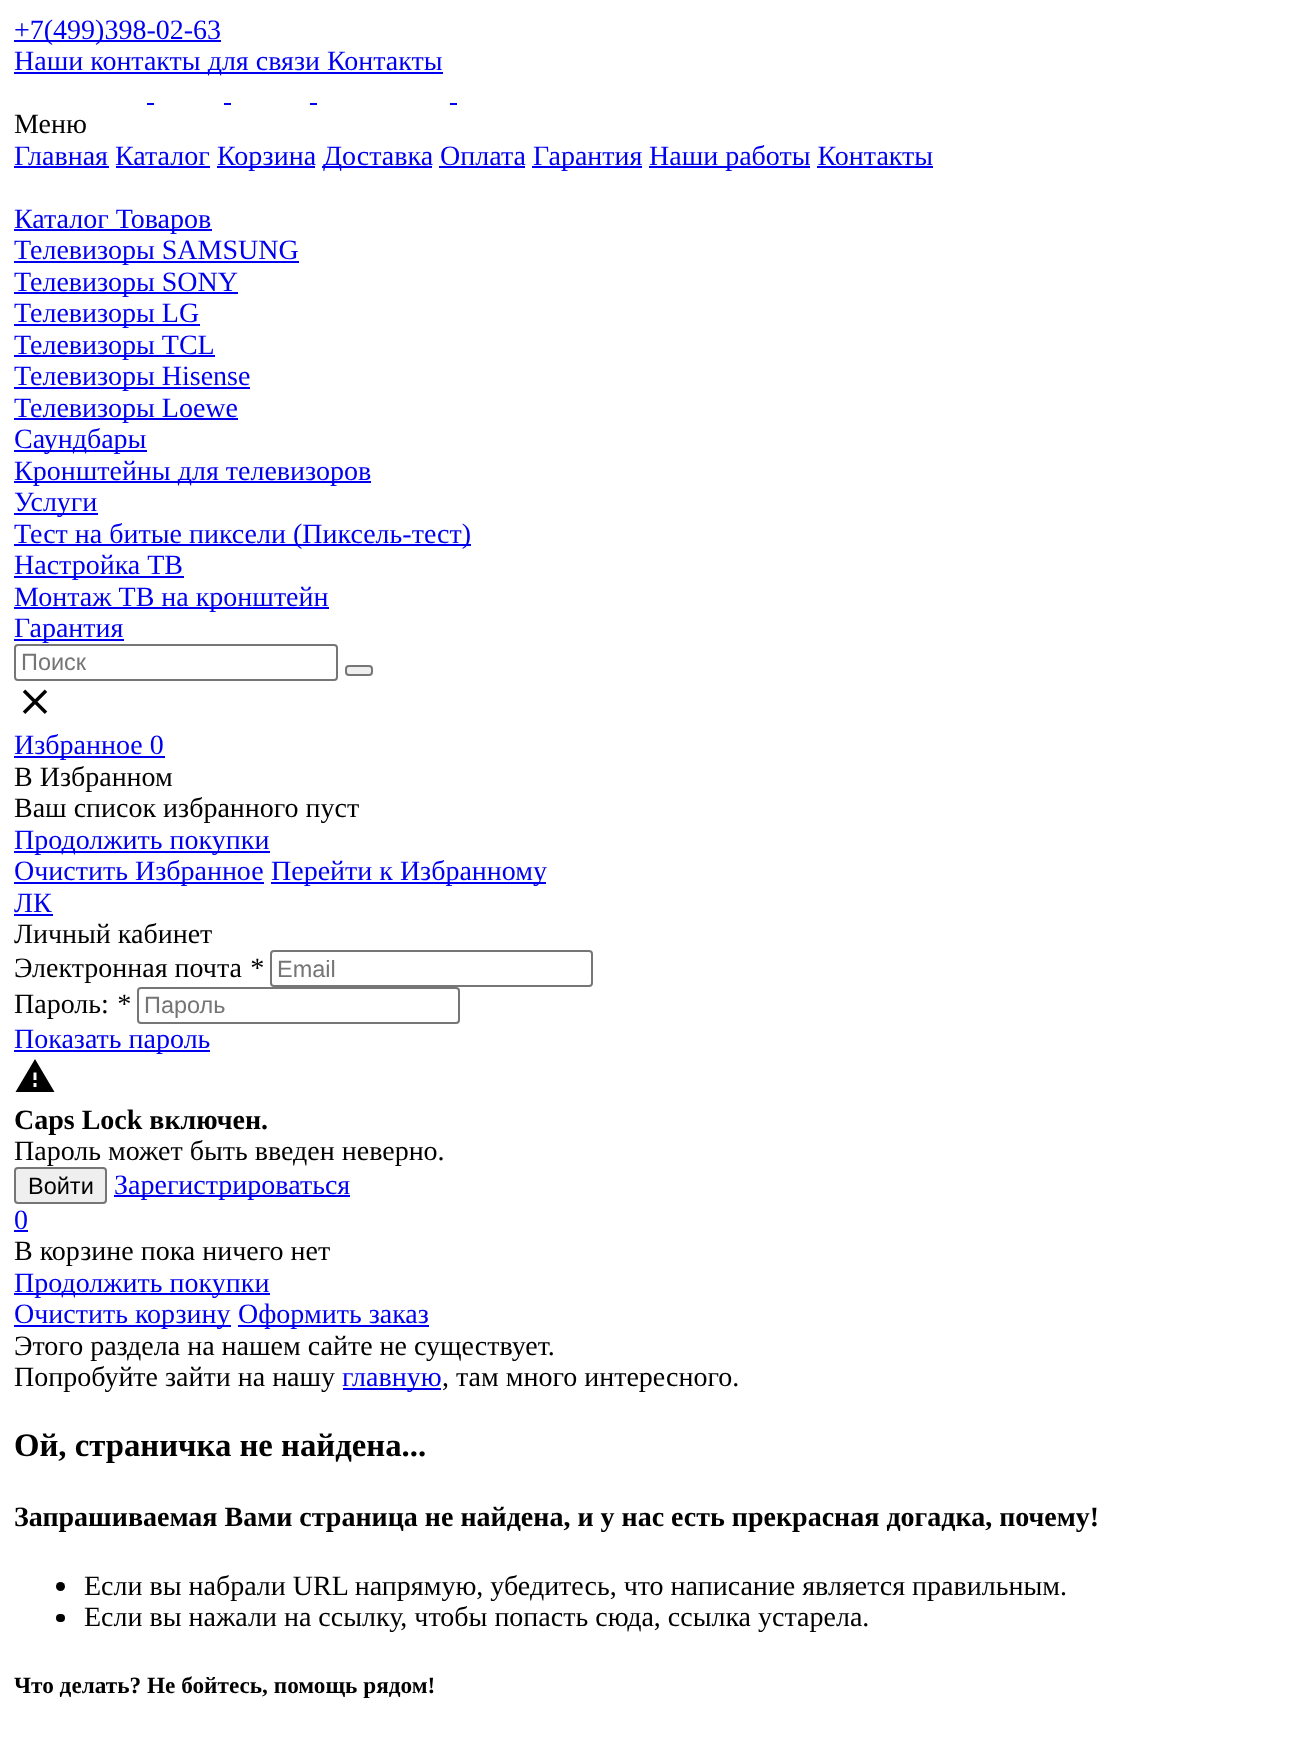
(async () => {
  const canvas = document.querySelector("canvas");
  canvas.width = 1313;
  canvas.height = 1749;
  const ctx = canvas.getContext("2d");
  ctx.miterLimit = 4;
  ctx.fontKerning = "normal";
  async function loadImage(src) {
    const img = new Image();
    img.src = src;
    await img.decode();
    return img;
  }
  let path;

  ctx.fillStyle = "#ffffff";
  ctx.fillRect(0, 0, 1313, 1749);
  for (const [x, y, w, h, color] of [
    [14, 40, 207, 2, "#0000ee"],
    [14, 72, 429, 2, "#0000ee"],
    [147, 103, 7, 2, "#0000ee"],
    [224, 103, 7, 2, "#0000ee"],
    [310, 103, 7, 2, "#0000ee"],
    [450, 103, 7, 2, "#0000ee"],
    [14, 166, 95, 2, "#0000ee"],
    [217, 166, 98, 2, "#0000ee"],
    [322, 166, 110, 2, "#0000ee"],
    [532, 166, 110, 2, "#0000ee"],
    [649, 166, 161, 2, "#0000ee"],
    [116, 166, 94, 2, "#0000ee"],
    [439, 166, 86, 2, "#0000ee"],
    [817, 166, 116, 2, "#0000ee"],
    [14, 229, 198, 2, "#0000ee"],
    [14, 261, 285, 2, "#0000ee"],
    [14, 292, 224, 2, "#0000ee"],
    [14, 324, 186, 2, "#0000ee"],
    [14, 355, 201, 2, "#0000ee"],
    [14, 387, 236, 2, "#0000ee"],
    [14, 418, 224, 2, "#0000ee"],
    [14, 450, 133, 2, "#0000ee"],
    [14, 481, 357, 2, "#0000ee"],
    [14, 513, 84, 2, "#0000ee"],
    [14, 544, 457, 2, "#0000ee"],
    [14, 576, 170, 2, "#0000ee"],
    [14, 607, 315, 2, "#0000ee"],
    [14, 639, 110, 2, "#0000ee"],
  ]) {
    ctx.fillStyle = color;
    ctx.fillRect(x, y, w, h);
  }
  ctx.beginPath();
  ctx.roundRect(15, 645, 322, 35, 3);
  ctx.strokeStyle = "#767676";
  ctx.lineWidth = 2;
  ctx.stroke();
  ctx.fillStyle = "#efefef";
  ctx.beginPath();
  ctx.roundRect(346, 666, 26, 9, 3);
  ctx.fill();
  ctx.stroke();
  ctx.drawImage(await loadImage("img/1.png"), 22, 689, 26, 25);
  for (const [x, y, w, h, color] of [
    [14, 756, 151, 2, "#0000ee"],
    [14, 851, 256, 2, "#0000ee"],
    [14, 882, 250, 2, "#0000ee"],
    [271, 882, 275, 2, "#0000ee"],
    [14, 914, 39, 2, "#0000ee"],
  ]) {
    ctx.fillStyle = color;
    ctx.fillRect(x, y, w, h);
  }
  ctx.beginPath();
  ctx.roundRect(271, 951, 321, 35, 3);
  ctx.stroke();
  ctx.beginPath();
  ctx.roundRect(138, 988, 321, 35, 3);
  ctx.stroke();
  ctx.fillRect(14, 1050, 196, 2);
  ctx.fillStyle = "#000000";
  path = new Path2D("M36.5 1080V1072.5H33.5V1080ZM36.5 1087V1083H33.5V1087ZM15.5 1092L35 1059L54.5 1092Z");
  ctx.fill(path);
  ctx.fillStyle = "#efefef";
  ctx.beginPath();
  ctx.roundRect(15, 1168, 91, 35, 3);
  ctx.fill();
  ctx.stroke();
  for (const [x, y, w, h, color] of [
    [114, 1195, 236, 2, "#0000ee"],
    [14, 1230, 14, 2, "#0000ee"],
    [14, 1293, 256, 2, "#0000ee"],
    [14, 1325, 217, 2, "#0000ee"],
    [238, 1325, 191, 2, "#0000ee"],
    [343, 1388, 98, 2, "#0000ee"],
  ]) {
    ctx.fillStyle = color;
    ctx.fillRect(x, y, w, h);
  }
  ctx.fillStyle = "#000000";
  ctx.beginPath();
  ctx.arc(60.5, 1586.5, 4.5, 0, Math.PI * 2);
  ctx.fill();
  ctx.beginPath();
  ctx.roundRect(56, 1614, 9, 8, 4);
  ctx.fill();
  ctx.font = "28px Liberation Serif";
  ctx.fillStyle = "#0000ee";
  ctx.fillText("+7(499)398-02-63", 14, 39);
  ctx.fillText("Наши контакты для связи Контакты", 14, 70);
  ctx.fillStyle = "#000000";
  ctx.fillText("Меню", 14, 133);
  ctx.fillStyle = "#0000ee";
  for (const [text, x, y] of [
    ["Главная Каталог", 14, 165],
    ["Корзина", 217, 165],
    ["Доставка Оплата", 323, 165],
    ["Гарантия", 533, 165],
    ["Наши работы Контакты", 649, 165],
    ["Каталог Товаров", 14, 228],
    ["Телевизоры SAMSUNG", 14, 259],
    ["Телевизоры SONY", 14, 291],
    ["Телевизоры LG", 14, 322],
    ["Телевизоры TCL", 14, 354],
    ["Телевизоры Hisense", 14, 385],
    ["Телевизоры Loewe", 14, 417],
    ["Саундбары", 14, 448],
    ["Кронштейны для телевизоров", 14, 480],
    ["Услуги", 14, 511],
    ["Тест на битые пиксели (Пиксель-тест)", 14, 543],
    ["Настройка ТВ", 14, 574],
    ["Монтаж ТВ на кронштейн", 14, 606],
    ["Гарантия", 14, 637],
  ]) {
    ctx.fillText(text, x, y);
  }
  ctx.font = "23.5px Liberation Sans";
  ctx.fillStyle = "#757575";
  ctx.fillText("Поиск", 21, 670);
  ctx.font = "28px Liberation Serif";
  ctx.fillStyle = "#0000ee";
  ctx.fillText("Избранное 0", 14, 754);
  ctx.fillStyle = "#000000";
  ctx.fillText("В Избранном", 14, 786);
  ctx.fillText("Ваш список избранного пуст", 14, 817);
  ctx.fillStyle = "#0000ee";
  for (const [text, x, y] of [
    ["Продолжить покупки", 14, 849],
    ["Очистить Избранное", 14, 880],
    ["Перейти к Избранному", 271, 880],
    ["ЛК", 14, 912],
  ]) {
    ctx.fillText(text, x, y);
  }
  ctx.fillStyle = "#000000";
  ctx.fillText("Личный кабинет", 14, 943);
  ctx.fillText("Электронная почта", 14, 977);
  ctx.font = "italic 28px Liberation Serif";
  ctx.fillText("*", 249, 977);
  ctx.font = "23.5px Liberation Sans";
  ctx.fillStyle = "#757575";
  ctx.fillText("Email", 277, 977);
  ctx.font = "28px Liberation Serif";
  ctx.fillStyle = "#000000";
  ctx.fillText("Пароль:", 14, 1013);
  ctx.font = "italic 28px Liberation Serif";
  ctx.fillText("*", 116, 1013);
  ctx.font = "23.5px Liberation Sans";
  ctx.fillStyle = "#757575";
  ctx.fillText("Пароль", 144, 1013);
  ctx.font = "28px Liberation Serif";
  ctx.fillStyle = "#0000ee";
  ctx.fillText("Показать пароль", 14, 1048);
  ctx.font = "bold 28px Liberation Serif";
  ctx.fillStyle = "#000000";
  ctx.fillText("Caps Lock включен.", 14, 1129);
  ctx.font = "28px Liberation Serif";
  ctx.fillText("Пароль может быть введен неверно.", 14, 1160);
  ctx.font = "23.5px Liberation Sans";
  ctx.fillText("Войти", 28, 1194);
  ctx.font = "28px Liberation Serif";
  ctx.fillStyle = "#0000ee";
  ctx.fillText("Зарегистрироваться", 114, 1194);
  ctx.fillText("0", 14, 1229);
  ctx.fillStyle = "#000000";
  ctx.fillText("В корзине пока ничего нет", 14, 1260);
  ctx.fillStyle = "#0000ee";
  for (const [text, x, y] of [
    ["Продолжить покупки", 14, 1292],
    ["Очистить корзину", 14, 1323],
    ["Оформить заказ", 238, 1323],
  ]) {
    ctx.fillText(text, x, y);
  }
  ctx.fillStyle = "#000000";
  ctx.fillText("Этого раздела на нашем сайте не существует.", 14, 1355);
  ctx.fillText("Попробуйте зайти на нашу", 14, 1386);
  ctx.fillStyle = "#0000ee";
  ctx.fillText("главную", 342, 1386);
  ctx.fillStyle = "#000000";
  ctx.fillText(", там много интересного.", 442, 1386);
  ctx.font = "bold 32.75px Liberation Serif";
  ctx.fillText("Ой, страничка не найдена...", 14, 1456);
  ctx.font = "bold 28px Liberation Serif";
  ctx.fillText("Запрашиваемая Вами страница не найдена, и у нас есть прекрасная догадка, почему!", 14, 1526);
  ctx.font = "28px Liberation Serif";
  ctx.fillText("Если вы набрали URL напрямую, убедитесь, что написание является правильным.", 84, 1595);
  ctx.fillText("Если вы нажали на ссылку, чтобы попасть сюда, ссылка устарела.", 84, 1626);
  ctx.font = "bold 23.25px Liberation Serif";
  ctx.fillText("Что делать? Не бойтесь, помощь рядом!", 14, 1693);
})();
